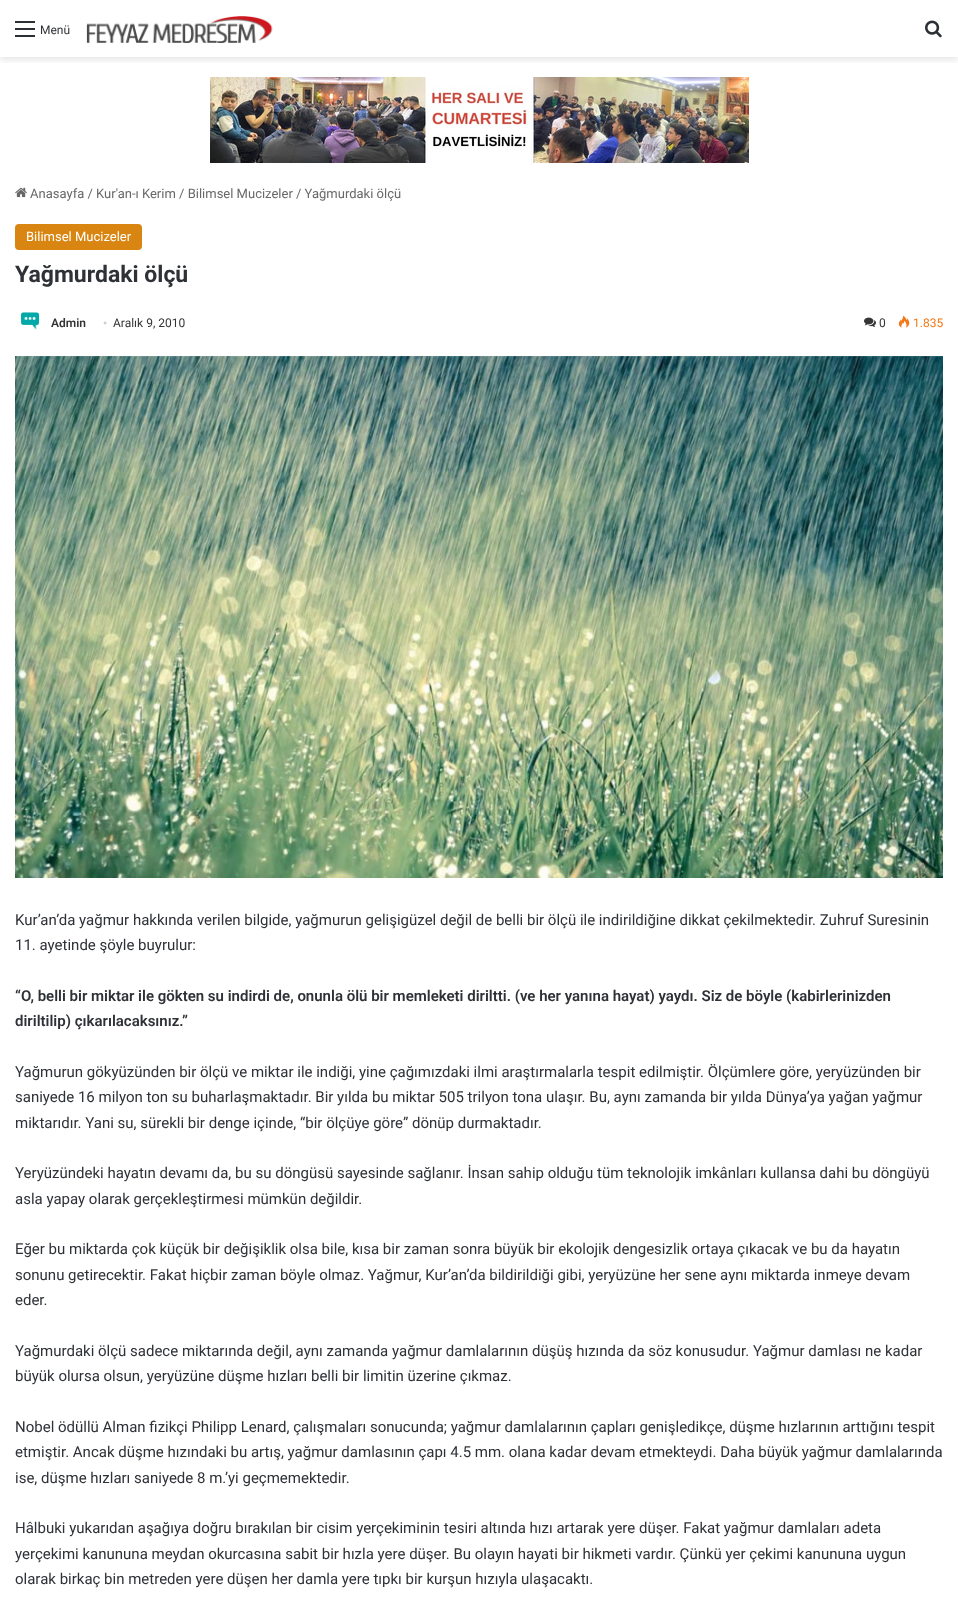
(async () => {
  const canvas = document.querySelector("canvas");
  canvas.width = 958;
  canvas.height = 1611;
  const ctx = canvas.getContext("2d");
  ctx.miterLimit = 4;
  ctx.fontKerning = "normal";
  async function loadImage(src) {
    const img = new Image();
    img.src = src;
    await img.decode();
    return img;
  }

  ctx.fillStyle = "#ffffff";
  ctx.fillRect(0, 0, 958, 1611);
  ctx.save();
  ctx.beginPath();
  ctx.rect(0, 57, 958, 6);
  ctx.clip();
  ctx.fillStyle = "rgba(0, 0, 0, 0.1)";
  ctx.filter = "blur(3.5px)";
  ctx.beginPath();
  ctx.rect(0, 3, 958, 57);
  ctx.fill();
  ctx.filter = "none";
  ctx.restore();
  for (const [x, y, w, h, color] of [
    [15, 28, 20, 2, "#2c2f34"],
    [15, 21, 20, 2, "#2c2f34"],
    [15, 35, 20, 2, "#2c2f34"],
  ]) {
    ctx.fillStyle = color;
    ctx.fillRect(x, y, w, h);
  }
  ctx.drawImage(await loadImage("img/1.png"), 86, 16, 187, 27);
  ctx.drawImage(await loadImage("img/2.png"), 925, 20, 17, 18);
  ctx.drawImage(await loadImage("img/3.png"), 210, 77, 539, 86);
  ctx.drawImage(await loadImage("img/4.png"), 15, 187, 12, 11);
  ctx.fillStyle = "#d88511";
  ctx.beginPath();
  ctx.roundRect(15, 224, 127, 26, 4);
  ctx.fill();
  ctx.drawImage(await loadImage("img/5.png"), 21, 312, 19, 18);
  ctx.drawImage(await loadImage("img/6.png"), 864, 317, 12, 10);
  ctx.drawImage(await loadImage("img/7.png"), 898, 315, 12, 13);
  ctx.drawImage(await loadImage("img/8.png"), 15, 356, 928, 522);
  ctx.font = "12px Roboto";
  ctx.fillStyle = "#2e3136";
  ctx.fillText("Menü", 40, 34);
  ctx.font = "13px Roboto";
  ctx.fillStyle = "#686868";
  ctx.fillText("Anasayfa / Kur'an-ı Kerim / Bilimsel Mucizeler / Yağmurdaki ölçü", 30, 198);
  ctx.fillStyle = "#ffffff";
  ctx.fillText("Bilimsel Mucizeler", 26, 241);
  ctx.font = "bold 23px Roboto";
  ctx.fillStyle = "#2e3136";
  ctx.fillText("Yağmurdaki ölçü", 15, 282);
  ctx.font = "600 12px Roboto";
  ctx.fillStyle = "#353535";
  ctx.fillText("Admin", 51, 327);
  ctx.font = "12px Liberation Serif";
  ctx.fillStyle = "#cdcdcd";
  ctx.fillText("•", 103, 327);
  ctx.font = "12px Roboto";
  ctx.fillStyle = "#353535";
  ctx.fillText("Aralık 9, 2010", 113, 327);
  ctx.fillText("0", 879, 327);
  ctx.fillStyle = "#f47614";
  ctx.fillText("1.835", 913, 327);
  ctx.font = "15px Roboto";
  ctx.fillStyle = "#2e3136";
  ctx.fillText("Kur’an’da yağmur hakkında verilen bilgide, yağmurun gelişigüzel değil de belli bir ölçü ile indirildiğine dikkat çekilmektedir. Zuhruf Suresinin", 15, 925);
  ctx.fillText("11. ayetinde şöyle buyrulur:", 15, 950);
  ctx.font = "600 15px Roboto";
  ctx.fillText("“O, belli bir miktar ile gökten su indirdi de, onunla ölü bir memleketi diriltti. (ve her yanına hayat) yaydı. Siz de böyle (kabirlerinizden", 15, 1001);
  ctx.fillText("diriltilip) çıkarılacaksınız.”", 15, 1026);
  ctx.font = "15px Roboto";
  for (const [text, x, y] of [
    ["Yağmurun gökyüzünden bir ölçü ve miktar ile indiği, yine çağımızdaki ilmi araştırmalarla tespit edilmiştir. Ölçümlere göre, yeryüzünden bir", 15, 1077],
    ["saniyede 16 milyon ton su buharlaşmaktadır. Bir yılda bu miktar 505 trilyon tona ulaşır. Bu, aynı zamanda bir yılda Dünya’ya yağan yağmur", 15, 1102],
    ["miktarıdır. Yani su, sürekli bir denge içinde, “bir ölçüye göre” dönüp durmaktadır.", 15, 1128],
    ["Yeryüzündeki hayatın devamı da, bu su döngüsü sayesinde sağlanır. İnsan sahip olduğu tüm teknolojik imkânları kullansa dahi bu döngüyü", 15, 1178],
    ["asla yapay olarak gerçekleştirmesi mümkün değildir.", 15, 1204],
    ["Eğer bu miktarda çok küçük bir değişiklik olsa bile, kısa bir zaman sonra büyük bir ekolojik dengesizlik ortaya çıkacak ve bu da hayatın", 15, 1254],
    ["sonunu getirecektir. Fakat hiçbir zaman böyle olmaz. Yağmur, Kur’an’da bildirildiği gibi, yeryüzüne her sene aynı miktarda inmeye devam", 15, 1280],
    ["eder.", 15, 1305],
    ["Yağmurdaki ölçü sadece miktarında değil, aynı zamanda yağmur damlalarının düşüş hızında da söz konusudur. Yağmur damlası ne kadar", 15, 1356],
    ["büyük olursa olsun, yeryüzüne düşme hızları belli bir limitin üzerine çıkmaz.", 15, 1381],
    ["Nobel ödüllü Alman fizikçi Philipp Lenard, çalışmaları sonucunda; yağmur damlalarının çapları genişledikçe, düşme hızlarının arttığını tespit", 15, 1432],
    ["etmiştir. Ancak düşme hızındaki bu artış, yağmur damlasının çapı 4.5 mm. olana kadar devam etmekteydi. Daha büyük yağmur damlalarında", 15, 1457],
    ["ise, düşme hızları saniyede 8 m.’yi geçmemektedir.", 15, 1483],
    ["Hâlbuki yukarıdan aşağıya doğru bırakılan bir cisim yerçekiminin tesiri altında hızı artarak yere düşer. Fakat yağmur damlaları adeta", 15, 1533],
    ["yerçekimi kanununa meydan okurcasına sabit bir hızla yere düşer. Bu olayın hayati bir hikmeti vardır. Çünkü yer çekimi kanununa uygun", 15, 1559],
    ["olarak birkaç bin metreden yere düşen her damla yere tıpkı bir kurşun hızıyla ulaşacaktı.", 15, 1584],
  ]) {
    ctx.fillText(text, x, y);
  }
})();
